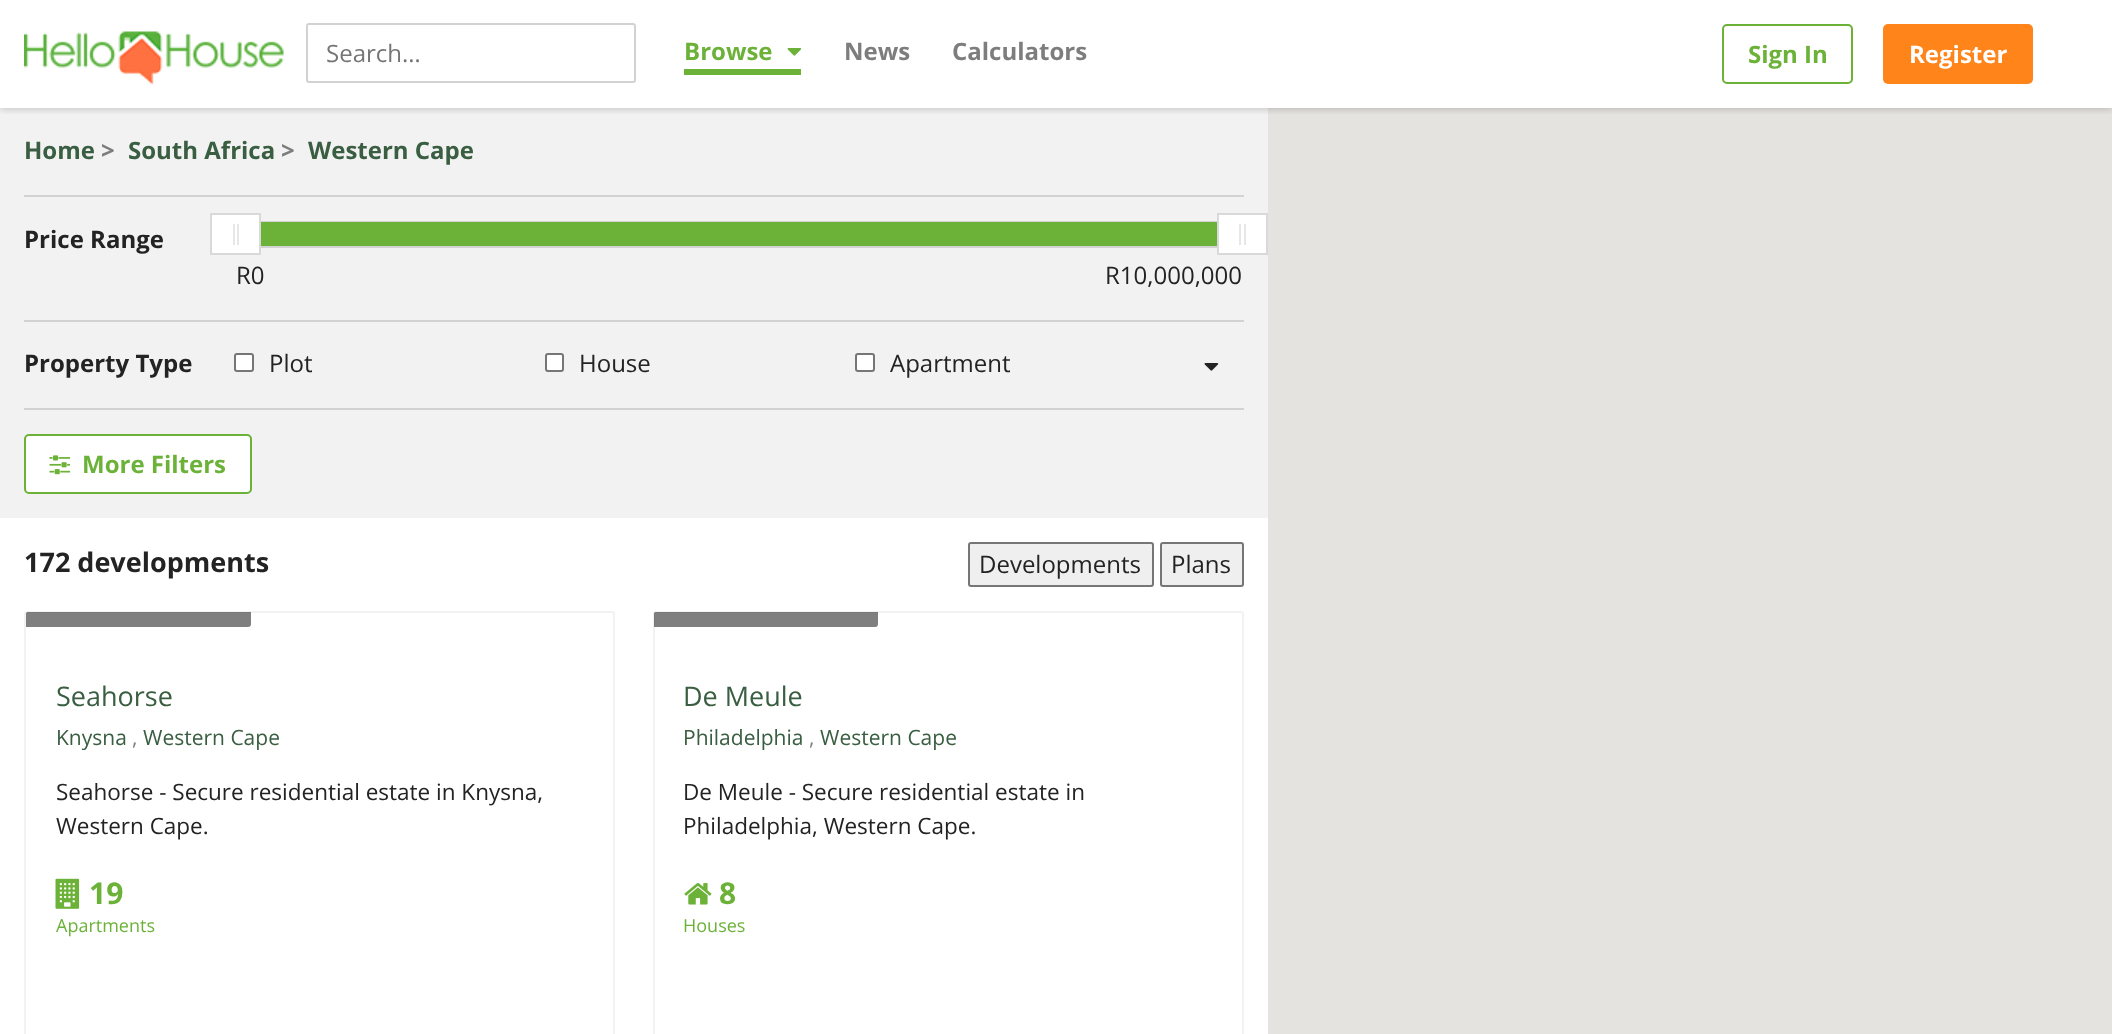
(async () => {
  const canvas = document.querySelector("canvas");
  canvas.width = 2112;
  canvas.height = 1034;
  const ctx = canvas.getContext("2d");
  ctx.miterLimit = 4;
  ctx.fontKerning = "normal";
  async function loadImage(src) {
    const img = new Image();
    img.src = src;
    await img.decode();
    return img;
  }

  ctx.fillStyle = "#ffffff";
  ctx.fillRect(0, 0, 2112, 1034);
  ctx.fillStyle = "#f2f2f2";
  ctx.fillRect(0, 108, 1268, 410);
  ctx.fillStyle = "#e5e3df";
  ctx.fillRect(1268, 108, 844, 926);
  ctx.save();
  ctx.beginPath();
  ctx.rect(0, 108, 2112, 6);
  ctx.clip();
  ctx.fillStyle = "rgba(0, 0, 0, 0.25)";
  ctx.filter = "blur(4px)";
  ctx.beginPath();
  ctx.rect(0, 0, 2112, 108);
  ctx.fill();
  ctx.filter = "none";
  ctx.restore();
  ctx.drawImage(await loadImage("img/1.png"), 24, 31, 260, 54);
  ctx.beginPath();
  ctx.roundRect(307, 24, 328, 58, 2);
  ctx.strokeStyle = "#d2d2d2";
  ctx.lineWidth = 2;
  ctx.stroke();
  ctx.fillStyle = "#6cb239";
  ctx.fillRect(684, 69, 117, 6);
  ctx.drawImage(await loadImage("img/2.png"), 787, 48, 15, 8);
  ctx.beginPath();
  ctx.roundRect(1723, 25, 129, 58, 4);
  ctx.strokeStyle = "#6cb239";
  ctx.stroke();
  ctx.fillStyle = "#ff851b";
  ctx.beginPath();
  ctx.roundRect(1883, 24, 150, 60, 5);
  ctx.fill();
  ctx.fillStyle = "#d2d2d2";
  ctx.fillRect(24, 195, 1220, 2);
  ctx.fillRect(24, 320, 1220, 2);
  ctx.strokeStyle = "#d3d3d3";
  ctx.strokeRect(235, 222, 1008, 25);
  ctx.fillStyle = "#6cb239";
  ctx.fillRect(261, 222, 956, 24);
  ctx.fillStyle = "#ffffff";
  ctx.beginPath();
  ctx.rect(211, 214, 49, 40);
  ctx.fill();
  ctx.strokeStyle = "#d9d9d9";
  ctx.stroke();
  ctx.fillStyle = "#e8e7e6";
  ctx.fillRect(233, 224, 2, 21);
  ctx.fillRect(237, 224, 2, 21);
  ctx.fillStyle = "#ffffff";
  ctx.beginPath();
  ctx.rect(1218, 214, 49, 40);
  ctx.fill();
  ctx.stroke();
  for (const [x, y, w, h, color] of [
    [1239, 224, 2, 21, "#e8e7e6"],
    [1244, 224, 2, 21, "#e8e7e6"],
    [24, 408, 1220, 2, "#d2d2d2"],
  ]) {
    ctx.fillStyle = color;
    ctx.fillRect(x, y, w, h);
  }
  ctx.fillStyle = "#ffffff";
  ctx.beginPath();
  ctx.roundRect(235, 354, 18, 17, 2);
  ctx.fill();
  ctx.strokeStyle = "#767676";
  ctx.stroke();
  ctx.beginPath();
  ctx.roundRect(546, 354, 17, 17, 2);
  ctx.fill();
  ctx.stroke();
  ctx.beginPath();
  ctx.roundRect(856, 354, 18, 17, 2);
  ctx.fill();
  ctx.stroke();
  ctx.drawImage(await loadImage("img/3.png"), 1204, 363, 15, 8);
  ctx.beginPath();
  ctx.roundRect(25, 435, 226, 58, 4);
  ctx.fill();
  ctx.strokeStyle = "#6cb239";
  ctx.stroke();
  ctx.drawImage(await loadImage("img/4.png"), 49, 455, 22, 20);
  ctx.fillStyle = "#efefef";
  ctx.beginPath();
  ctx.roundRect(969, 543, 184, 43, 2);
  ctx.fill();
  ctx.strokeStyle = "#767676";
  ctx.stroke();
  ctx.beginPath();
  ctx.roundRect(1161, 543, 82, 43, 2);
  ctx.fill();
  ctx.stroke();
  ctx.beginPath();
  ctx.roundRect(25, 612, 589, 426, 2);
  ctx.strokeStyle = "#f2f2f2";
  ctx.stroke();
  ctx.fillStyle = "rgba(0, 0, 0, 0.5)";
  ctx.beginPath();
  ctx.roundRect(26, 612, 225, 15, [1.5, 0, 3, 0]);
  ctx.fill();
  ctx.drawImage(await loadImage("img/5.png"), 55, 878, 25, 31);
  ctx.beginPath();
  ctx.roundRect(654, 612, 589, 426, 2);
  ctx.stroke();
  ctx.beginPath();
  ctx.roundRect(654, 612, 224, 15, [1.5, 0, 3, 0]);
  ctx.fill();
  ctx.drawImage(await loadImage("img/6.png"), 684, 883, 28, 22);
  ctx.font = "24px Open Sans";
  ctx.fillStyle = "#757575";
  ctx.fillText("Search…", 326, 62);
  ctx.font = "bold 24px Open Sans";
  ctx.fillStyle = "#6cb239";
  ctx.fillText("Browse", 684, 60);
  ctx.fillStyle = "#7d7d7d";
  ctx.fillText("News", 844, 60);
  ctx.fillText("Calculators", 952, 60);
  ctx.fillStyle = "#6cb239";
  ctx.fillText("Sign In", 1748, 63);
  ctx.fillStyle = "#ffffff";
  ctx.fillText("Register", 1909, 63);
  ctx.fillStyle = "#3a5e41";
  ctx.fillText("Home", 24, 159);
  ctx.fillStyle = "#7d7d7d";
  ctx.fillText(">", 101, 159);
  ctx.fillStyle = "#3a5e41";
  ctx.fillText("South Africa", 128, 159);
  ctx.fillStyle = "#7d7d7d";
  ctx.fillText(">", 281, 159);
  ctx.fillStyle = "#3a5e41";
  ctx.fillText("Western Cape", 308, 159);
  ctx.fillStyle = "#232323";
  ctx.fillText("Price Range", 24, 248);
  ctx.font = "24px Open Sans";
  ctx.fillText("R0", 236, 284);
  ctx.fillText("R10,000,000", 1105, 284);
  ctx.font = "bold 24px Open Sans";
  ctx.fillText("Property Type", 24, 372);
  ctx.font = "24px Open Sans";
  for (const [text, x, y] of [
    ["Plot", 269, 372],
    ["House", 579, 372],
    ["Apartment", 890, 372],
  ]) {
    ctx.fillText(text, x, y);
  }
  ctx.font = "bold 24px Open Sans";
  ctx.fillStyle = "#6cb239";
  ctx.fillText("More Filters", 82, 473);
  ctx.font = "bold 27px Open Sans";
  ctx.fillStyle = "#232323";
  ctx.fillText("172 developments", 24, 572);
  ctx.font = "24px Open Sans";
  ctx.fillText("Developments", 979, 573);
  ctx.fillText("Plans", 1171, 573);
  ctx.font = "27px Open Sans";
  ctx.fillStyle = "#3a5e41";
  ctx.fillText("Seahorse", 56, 706);
  ctx.font = "21px Open Sans";
  ctx.fillText("Knysna", 56, 745);
  ctx.fillStyle = "#7d7d7d";
  ctx.fillText(",", 132, 745);
  ctx.fillStyle = "#3a5e41";
  ctx.fillText("Western Cape", 143, 745);
  ctx.font = "22.5px Open Sans";
  ctx.fillStyle = "#232323";
  ctx.fillText("Seahorse - Secure residential estate in Knysna,", 56, 800);
  ctx.fillText("Western Cape.", 56, 834);
  ctx.font = "bold 30px Open Sans";
  ctx.fillStyle = "#6cb239";
  ctx.fillText("19", 89, 904);
  ctx.font = "18px Open Sans";
  ctx.fillText("Apartments", 56, 932);
  ctx.font = "27px Open Sans";
  ctx.fillStyle = "#3a5e41";
  ctx.fillText("De Meule", 683, 706);
  ctx.font = "21px Open Sans";
  ctx.fillText("Philadelphia", 683, 745);
  ctx.fillStyle = "#7d7d7d";
  ctx.fillText(",", 809, 745);
  ctx.fillStyle = "#3a5e41";
  ctx.fillText("Western Cape", 820, 745);
  ctx.font = "22.5px Open Sans";
  ctx.fillStyle = "#232323";
  ctx.fillText("De Meule - Secure residential estate in", 683, 800);
  ctx.fillText("Philadelphia, Western Cape.", 683, 834);
  ctx.font = "bold 30px Open Sans";
  ctx.fillStyle = "#6cb239";
  ctx.fillText("8", 719, 904);
  ctx.font = "18px Open Sans";
  ctx.fillText("Houses", 683, 932);
})();
